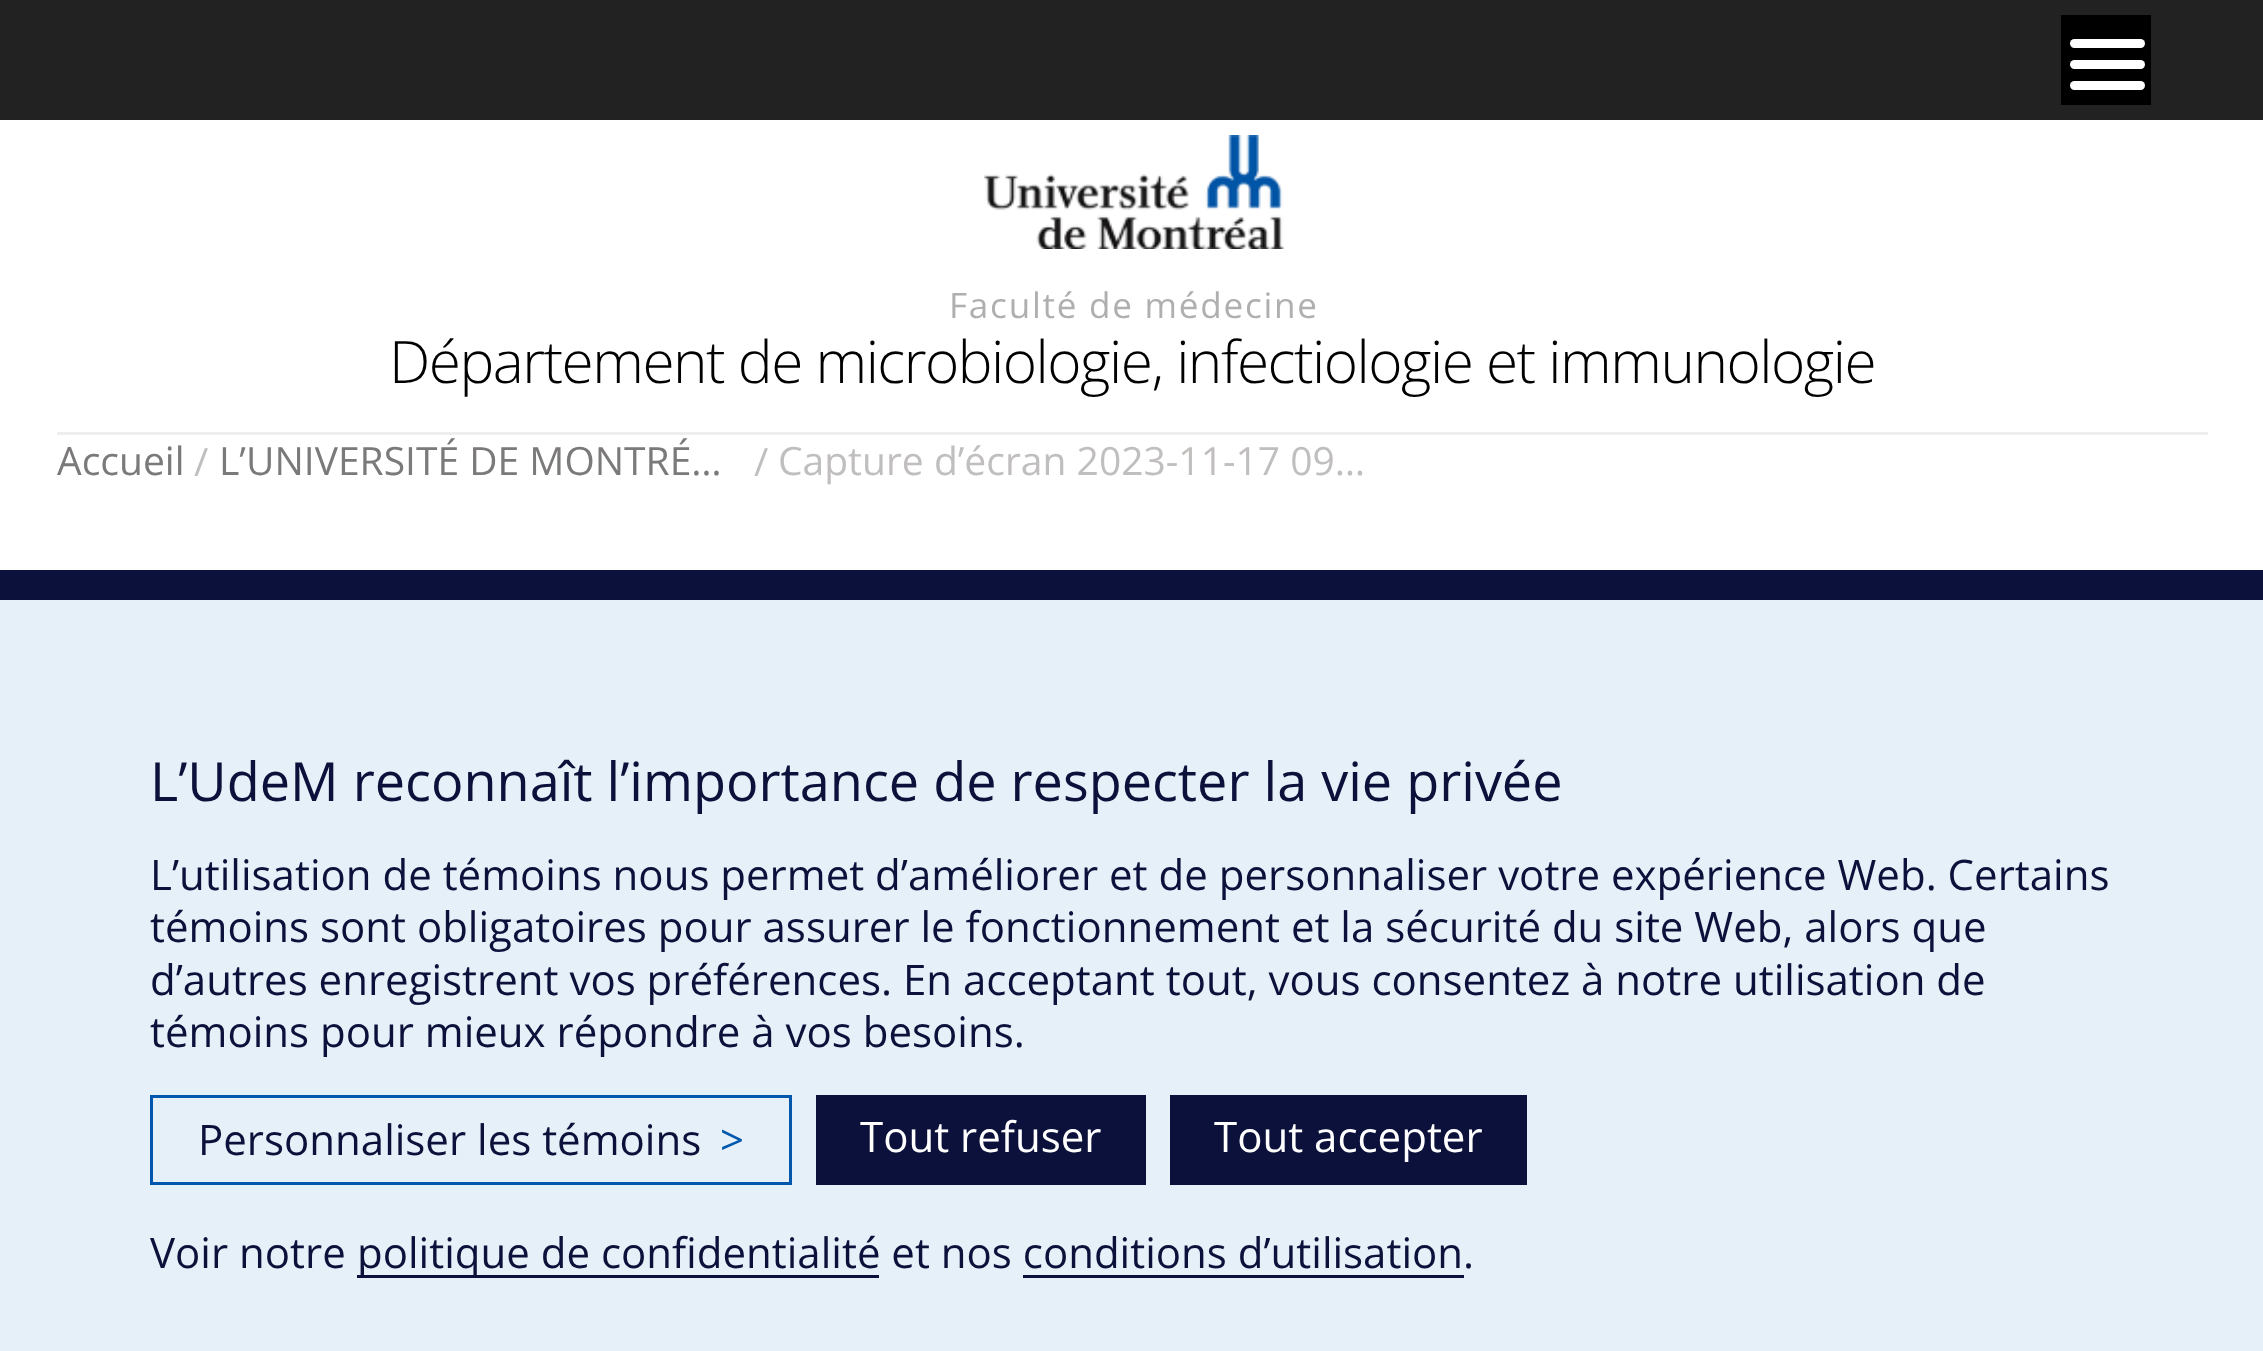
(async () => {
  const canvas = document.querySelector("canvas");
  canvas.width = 2263;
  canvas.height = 1351;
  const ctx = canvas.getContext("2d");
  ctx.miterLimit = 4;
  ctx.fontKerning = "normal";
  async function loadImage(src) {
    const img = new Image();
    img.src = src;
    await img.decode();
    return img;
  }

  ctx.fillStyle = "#ffffff";
  ctx.fillRect(0, 0, 2263, 1351);
  ctx.fillStyle = "#222222";
  ctx.fillRect(0, 0, 2263, 120);
  ctx.fillStyle = "#000000";
  ctx.fillRect(2061, 15, 90, 90);
  ctx.fillStyle = "#ffffff";
  ctx.beginPath();
  ctx.roundRect(2070, 60, 75, 9, 4.5);
  ctx.fill();
  ctx.beginPath();
  ctx.roundRect(2070, 39, 75, 9, 4.5);
  ctx.fill();
  ctx.beginPath();
  ctx.roundRect(2070, 81, 75, 9, 4.5);
  ctx.fill();
  ctx.fillStyle = "#eeeeee";
  ctx.fillRect(57, 432, 2151, 3);
  ctx.drawImage(await loadImage("img/1.png"), 984, 135, 300, 114);
  ctx.fillStyle = "#e5f0f8";
  ctx.fillRect(0, 600, 2263, 751);
  ctx.fillStyle = "#0b113a";
  ctx.fillRect(0, 570, 2263, 30);
  ctx.strokeStyle = "#0057ac";
  ctx.lineWidth = 3;
  ctx.strokeRect(151.5, 1096.5, 639, 87);
  for (const [x, y, w, h, color] of [
    [816, 1095, 330, 90, "#0b113a"],
    [1170, 1095, 357, 90, "#0b113a"],
    [357, 1275, 522, 3, "#0b113a"],
    [1023, 1275, 441, 3, "#0b113a"],
  ]) {
    ctx.fillStyle = color;
    ctx.fillRect(x, y, w, h);
  }
  ctx.letterSpacing = "1.75px";
  ctx.font = "35.1px Open Sans";
  ctx.fillStyle = "#afafaf";
  ctx.fillText("Faculté de médecine", 949, 318);
  ctx.letterSpacing = "-1.5px";
  ctx.font = "300 58.5px Open Sans";
  ctx.fillStyle = "#000000";
  ctx.fillText("Département de microbiologie, infectiologie et immunologie", 389, 383);
  ctx.letterSpacing = "0px";
  ctx.font = "39px Open Sans";
  ctx.fillStyle = "#7b7979";
  ctx.fillText("Accueil", 57, 475);
  ctx.fillStyle = "#c1bebe";
  ctx.fillText("/", 194, 476);
  ctx.fillStyle = "#7b7979";
  ctx.fillText("L’UNIVERSITÉ DE MONTRÉ…", 219, 475);
  ctx.fillStyle = "#c1bebe";
  ctx.fillText("/", 754, 476);
  ctx.fillText("Capture d’écran 2023-11-17 09…", 778, 475);
  ctx.font = "54px Open Sans";
  ctx.fillStyle = "#0b113a";
  ctx.fillText("L’UdeM reconnaît l’importance de respecter la vie privée", 150, 801);
  ctx.font = "42px Open Sans";
  for (const [text, x, y] of [
    ["L’utilisation de témoins nous permet d’améliorer et de personnaliser votre expérience Web. Certains", 150, 890],
    ["témoins sont obligatoires pour assurer le fonctionnement et la sécurité du site Web, alors que", 150, 942],
    ["d’autres enregistrent vos préférences. En acceptant tout, vous consentez à notre utilisation de", 150, 995],
    ["témoins pour mieux répondre à vos besoins.", 150, 1047],
    ["Personnaliser les témoins", 198, 1155],
  ]) {
    ctx.fillText(text, x, y);
  }
  ctx.fillStyle = "#0057ac";
  ctx.fillText(">", 720, 1155);
  ctx.fillStyle = "#ffffff";
  ctx.fillText("Tout refuser", 860, 1152);
  ctx.fillText("Tout accepter", 1214, 1152);
  ctx.fillStyle = "#0b113a";
  ctx.fillText("Voir notre", 150, 1268);
  ctx.fillText("politique de confidentialité et nos conditions d’utilisation.", 357, 1268);
})();
